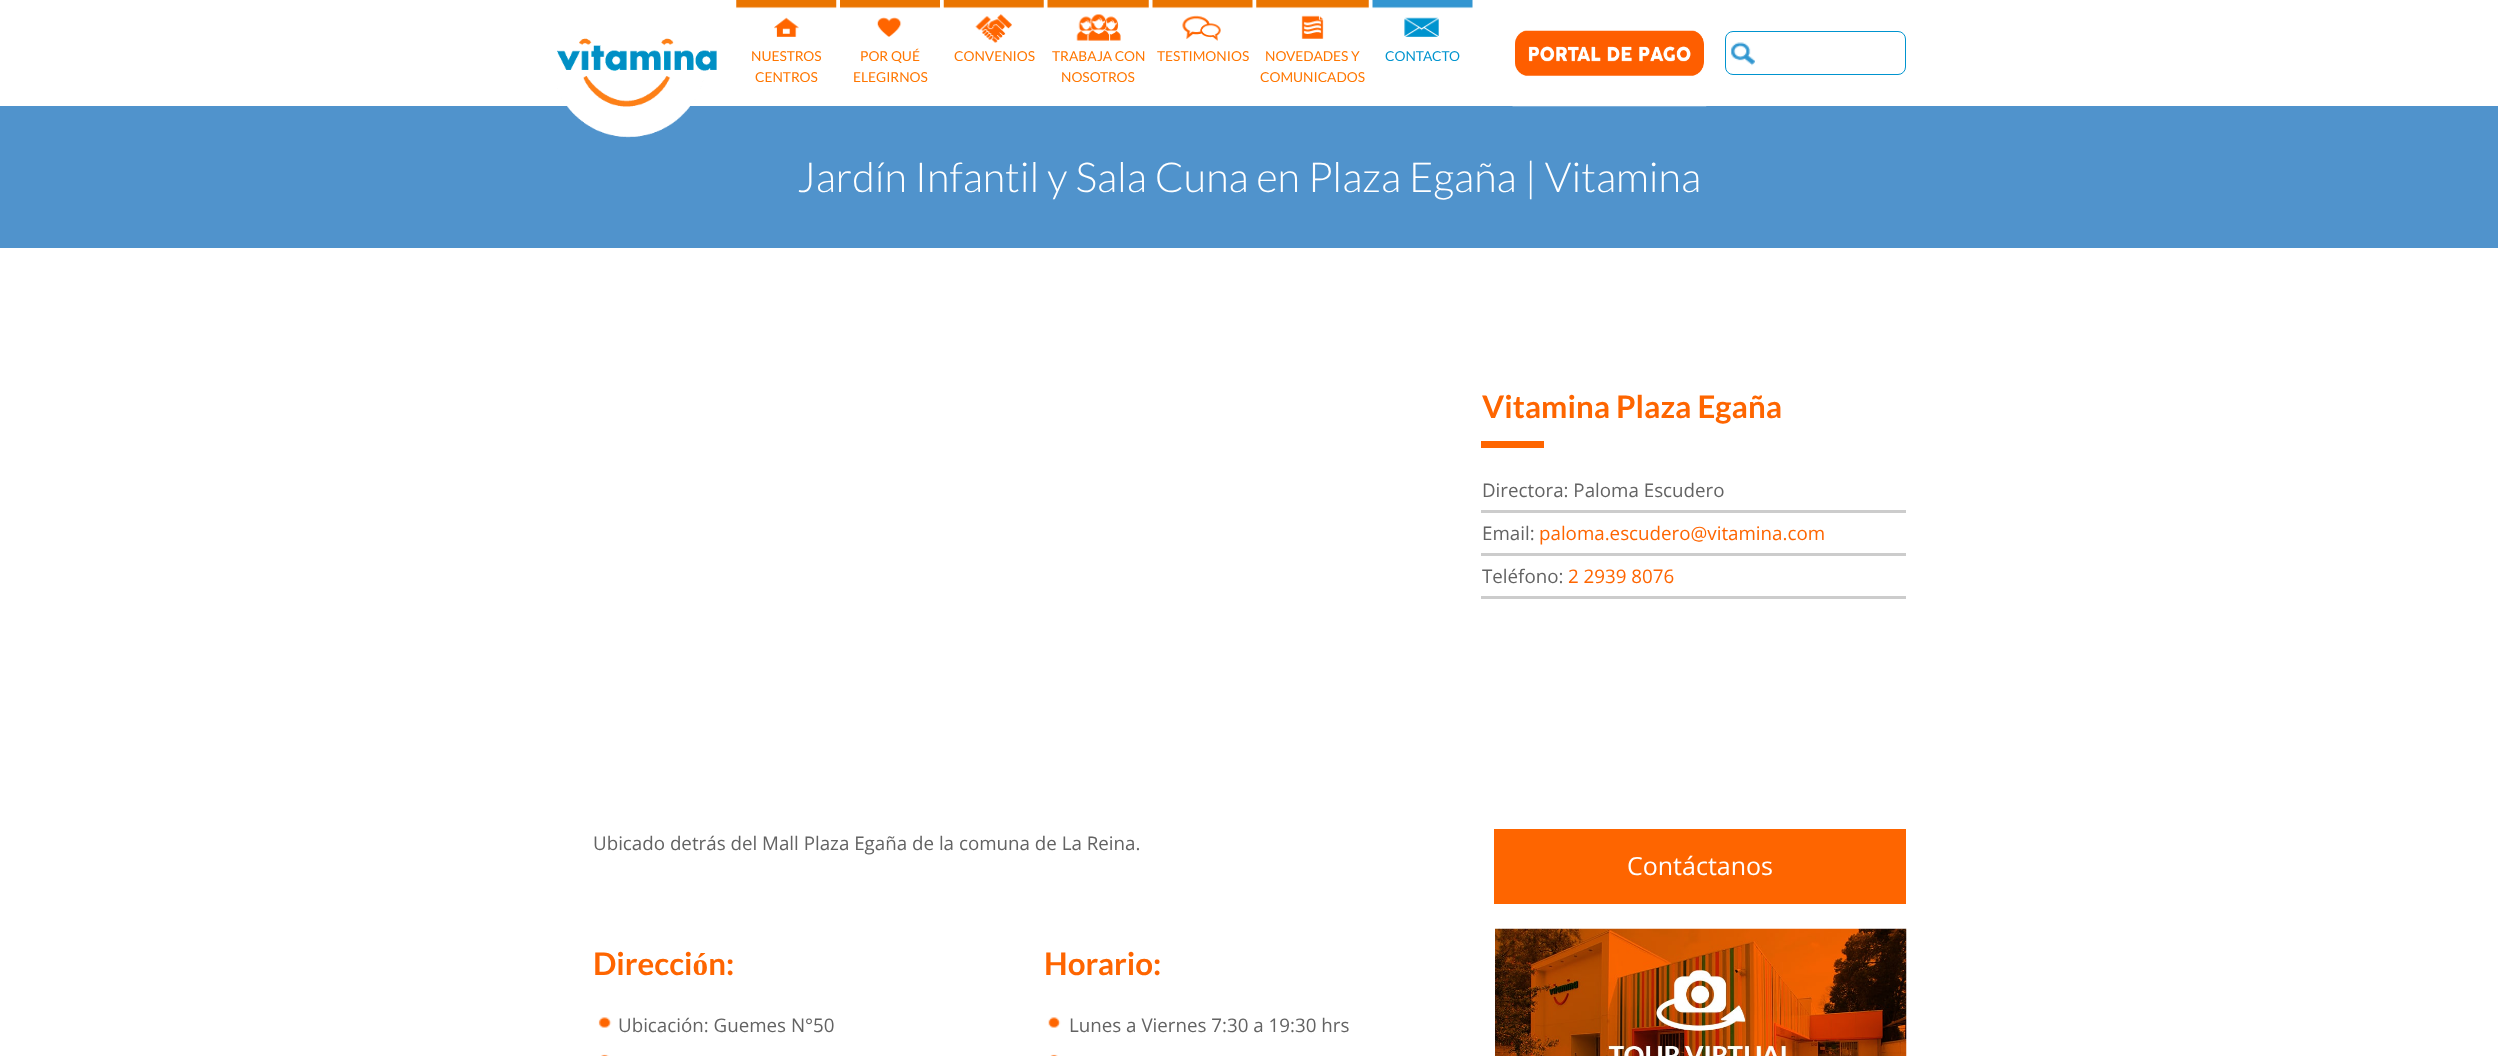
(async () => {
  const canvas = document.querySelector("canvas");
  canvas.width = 2498;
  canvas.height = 1056;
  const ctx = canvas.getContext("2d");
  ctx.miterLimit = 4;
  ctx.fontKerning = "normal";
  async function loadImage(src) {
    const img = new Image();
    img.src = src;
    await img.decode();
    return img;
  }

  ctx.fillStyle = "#ffffff";
  ctx.fillRect(0, 0, 2498, 1056);
  ctx.fillStyle = "#5093cc";
  ctx.fillRect(0, 106, 2498, 142);
  ctx.drawImage(await loadImage("img/1.png"), 557, 38, 160, 100);
  ctx.drawImage(await loadImage("img/2.png"), 736, 0, 101, 9);
  ctx.drawImage(await loadImage("img/3.png"), 774, 17, 25, 20);
  ctx.drawImage(await loadImage("img/4.png"), 840, 0, 100, 9);
  ctx.drawImage(await loadImage("img/5.png"), 877, 17, 25, 20);
  ctx.drawImage(await loadImage("img/6.png"), 943, 0, 101, 9);
  ctx.drawImage(await loadImage("img/7.png"), 975, 14, 37, 29);
  ctx.drawImage(await loadImage("img/8.png"), 1047, 0, 102, 9);
  ctx.drawImage(await loadImage("img/9.png"), 1076, 14, 45, 27);
  ctx.drawImage(await loadImage("img/10.png"), 1152, 0, 101, 9);
  ctx.drawImage(await loadImage("img/11.png"), 1182, 15, 39, 26);
  ctx.drawImage(await loadImage("img/12.png"), 1256, 0, 113, 9);
  ctx.drawImage(await loadImage("img/13.png"), 1301, 15, 23, 24);
  ctx.drawImage(await loadImage("img/14.png"), 1372, 0, 101, 9);
  ctx.drawImage(await loadImage("img/15.png"), 1404, 17, 35, 20);
  ctx.drawImage(await loadImage("img/16.png"), 1512, 30, 195, 77);
  ctx.drawImage(await loadImage("img/17.png"), 1731, 42, 24, 24);
  ctx.beginPath();
  ctx.roundRect(1725.5, 31.5, 180, 43, 7.5);
  ctx.strokeStyle = "#0094cf";
  ctx.stroke();
  for (const [x, y, w, h, color] of [
    [1481, 441, 63, 7, "#fe6500"],
    [1481, 510, 425, 3, "#cccccc"],
    [1481, 553, 425, 3, "#cccccc"],
    [1481, 596, 425, 3, "#cccccc"],
    [1494, 829, 412, 75, "#fe6500"],
  ]) {
    ctx.fillStyle = color;
    ctx.fillRect(x, y, w, h);
  }
  ctx.drawImage(await loadImage("img/18.png"), 598, 1017, 14, 11);
  ctx.drawImage(await loadImage("img/19.png"), 601, 1054, 8, 2);
  ctx.drawImage(await loadImage("img/20.png"), 1048, 1017, 13, 11);
  ctx.drawImage(await loadImage("img/21.png"), 1050, 1054, 8, 2);
  ctx.drawImage(await loadImage("img/22.png"), 1495, 928, 412, 128);
  ctx.font = "13.75px Lato";
  ctx.fillStyle = "#ff7600";
  for (const [text, x, y] of [
    ["NUESTROS", 751, 61],
    ["CENTROS", 755, 82],
    ["POR QUÉ", 860, 61],
    ["ELEGIRNOS", 853, 82],
    ["CONVENIOS", 954, 61],
    ["TRABAJA CON", 1052, 61],
    ["NOSOTROS", 1061, 82],
    ["TESTIMONIOS", 1157, 61],
    ["NOVEDADES Y", 1265, 61],
    ["COMUNICADOS", 1260, 82],
  ]) {
    ctx.fillText(text, x, y);
  }
  ctx.fillStyle = "#0094cf";
  ctx.fillText("CONTACTO", 1385, 61);
  ctx.font = "300 41.25px Lato";
  ctx.fillStyle = "#ffffff";
  ctx.fillText("Jardín Infantil y Sala Cuna en Plaza Egaña | Vitamina", 797, 192);
  ctx.font = "bold 31.25px Lato";
  ctx.fillStyle = "#fe6500";
  ctx.fillText("Vitamina Plaza Egaña", 1482, 418);
  ctx.font = "18.75px Open Sans";
  ctx.fillStyle = "#636363";
  ctx.fillText("Directora: Paloma Escudero", 1482, 497);
  ctx.fillText("Email:", 1482, 540);
  ctx.fillStyle = "#fe6500";
  ctx.fillText("paloma.escudero@vitamina.com", 1539, 540);
  ctx.fillStyle = "#636363";
  ctx.fillText("Teléfono:", 1482, 583);
  ctx.fillStyle = "#fe6500";
  ctx.fillText("2 2939 8076", 1568, 583);
  ctx.fillStyle = "#636363";
  ctx.fillText("Ubicado detrás del Mall Plaza Egaña de la comuna de La Reina.", 593, 850);
  ctx.font = "25px Open Sans";
  ctx.fillStyle = "#ffffff";
  ctx.fillText("Contáctanos", 1627, 875);
  ctx.font = "bold 31.25px Lato";
  ctx.fillStyle = "#fe6500";
  ctx.fillText("Dirección:", 593, 975);
  ctx.font = "18.75px Open Sans";
  ctx.fillStyle = "#636363";
  ctx.fillText("Ubicación: Guemes N°50", 618, 1032);
  ctx.font = "bold 31.25px Lato";
  ctx.fillStyle = "#fe6500";
  ctx.fillText("Horario:", 1044, 975);
  ctx.font = "18.75px Open Sans";
  ctx.fillStyle = "#636363";
  ctx.fillText("Lunes a Viernes 7:30 a 19:30 hrs", 1069, 1032);
})();
